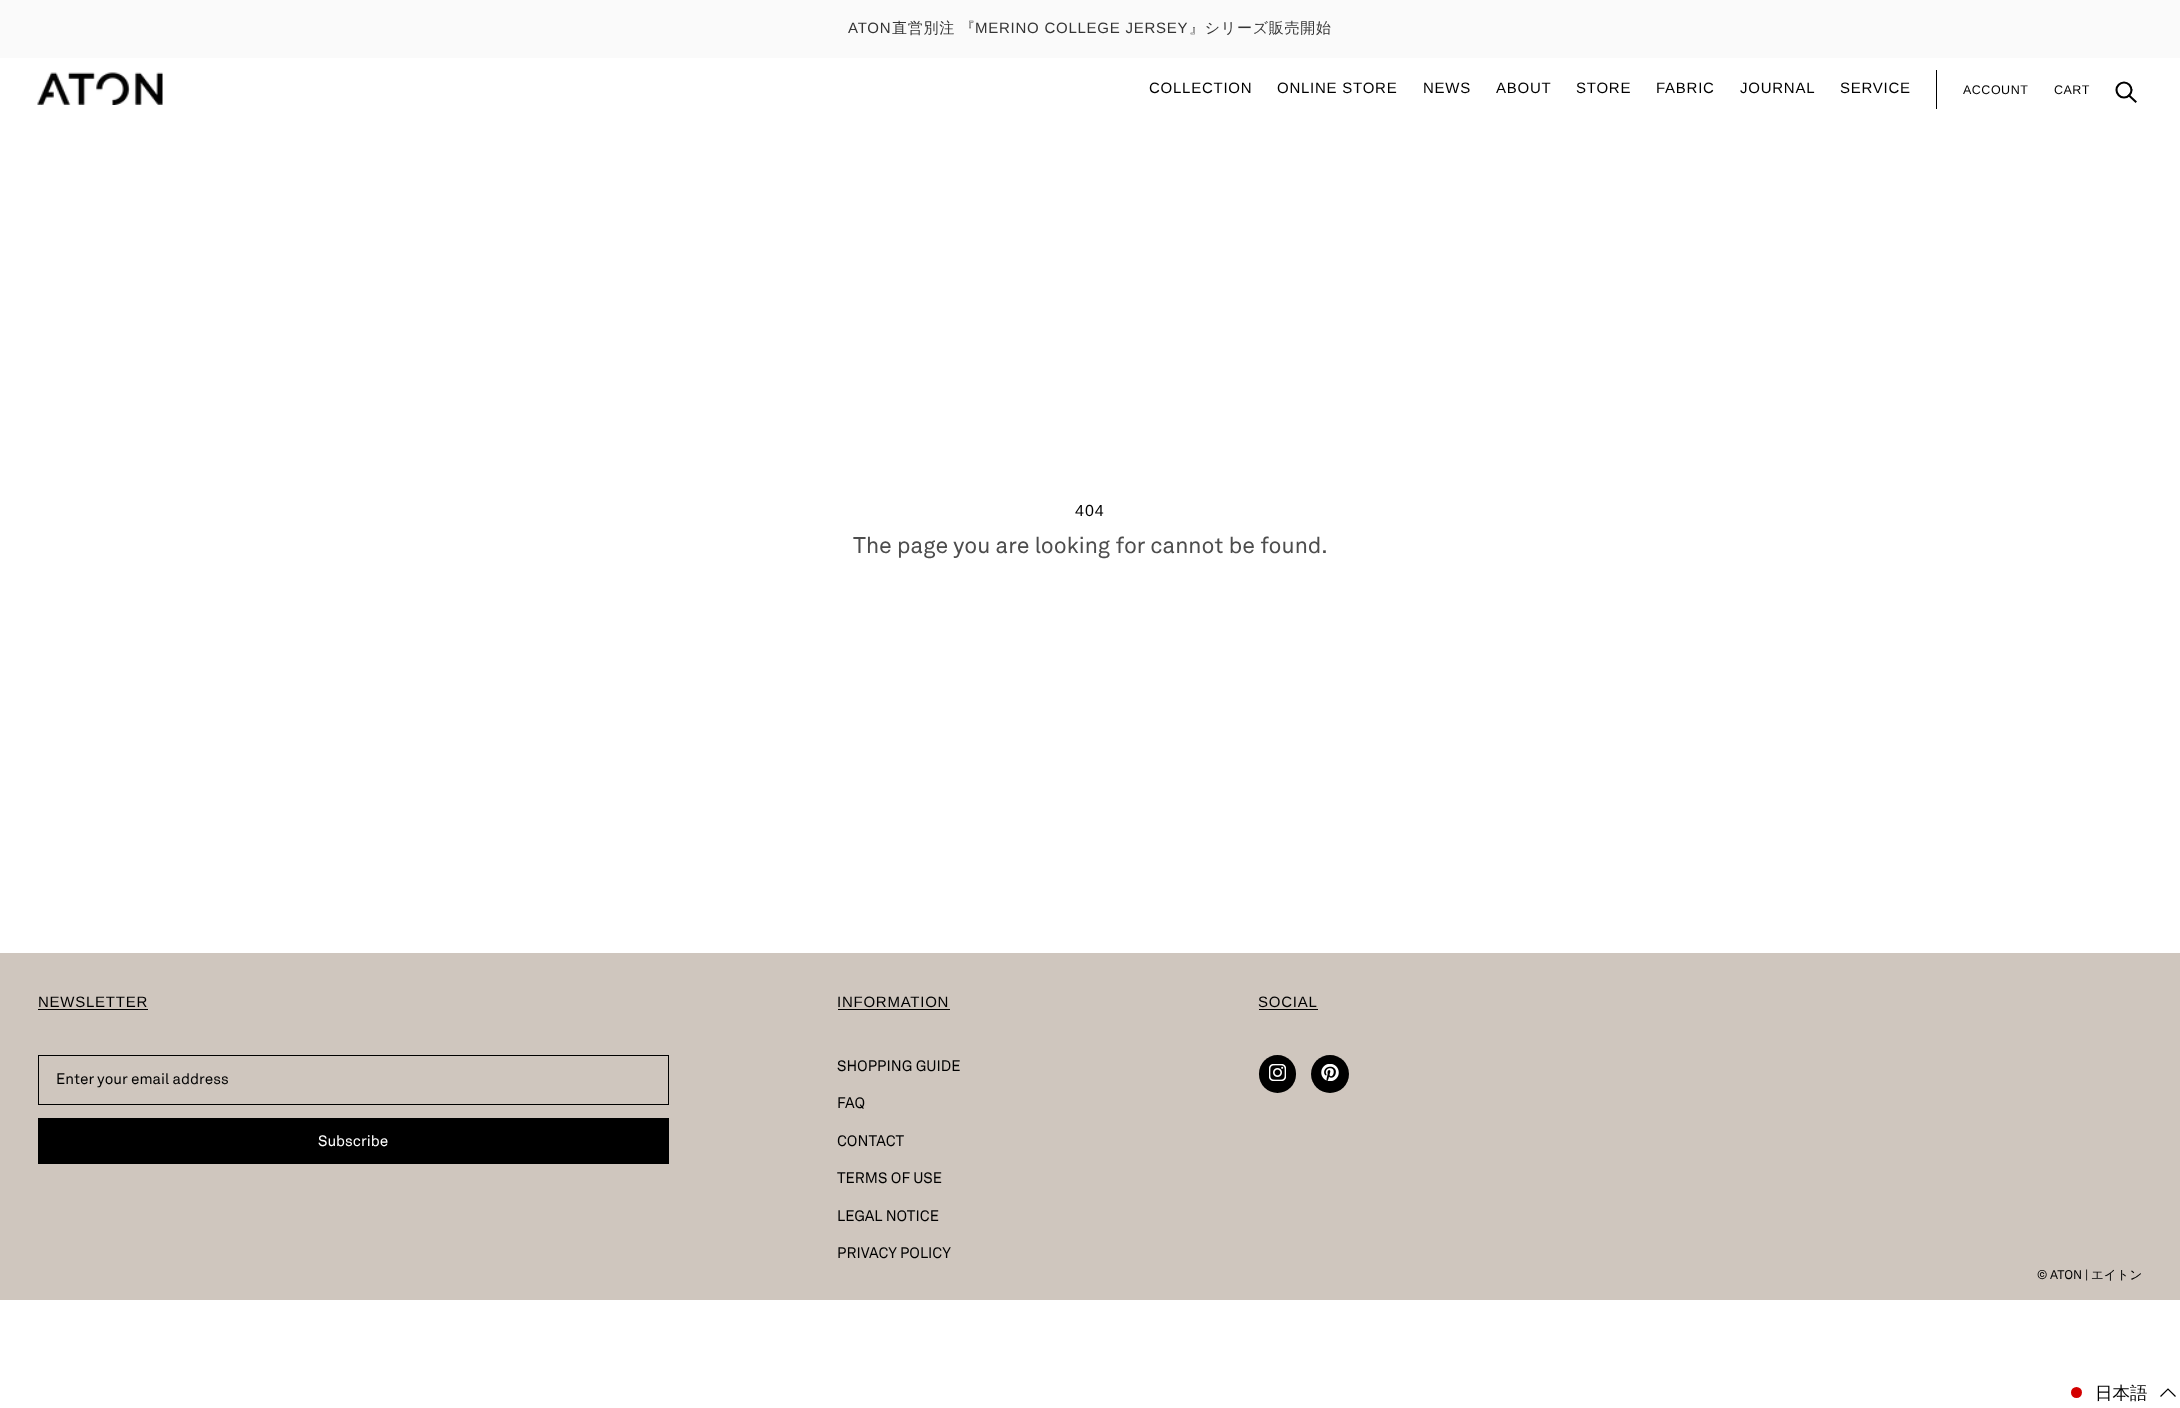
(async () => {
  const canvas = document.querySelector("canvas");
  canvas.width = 2180;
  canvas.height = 1408;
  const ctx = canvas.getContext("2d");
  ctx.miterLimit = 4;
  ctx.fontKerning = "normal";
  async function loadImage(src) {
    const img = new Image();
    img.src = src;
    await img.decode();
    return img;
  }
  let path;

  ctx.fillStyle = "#ffffff";
  ctx.fillRect(0, 0, 2180, 1408);
  ctx.fillStyle = "#fafafa";
  ctx.fillRect(0, 0, 2180, 58);
  ctx.drawImage(await loadImage("img/1.png"), 37, 72, 126, 33);
  ctx.fillStyle = "#000000";
  ctx.fillRect(1936, 70, 1, 39);
  path = new Path2D("M2135.5 101.5L2129 95.5");
  ctx.strokeStyle = "#000000";
  ctx.lineWidth = 2.1;
  ctx.lineCap = "square";
  ctx.stroke(path);
  ctx.beginPath();
  ctx.arc(2124, 90, 7.5, 0, Math.PI * 2);
  ctx.stroke();
  ctx.fillStyle = "#cfc6be";
  ctx.fillRect(0, 953, 2180, 347);
  ctx.fillStyle = "#000000";
  ctx.fillRect(38, 1009, 110, 1);
  ctx.lineWidth = 1;
  ctx.strokeRect(38.5, 1055.5, 630, 49);
  for (const [x, y, w, h, color] of [
    [38, 1118, 631, 46, "#000000"],
    [838, 1009, 112, 1, "#000000"],
    [1259, 1009, 59, 1, "#000000"],
  ]) {
    ctx.fillStyle = color;
    ctx.fillRect(x, y, w, h);
  }
  ctx.beginPath();
  ctx.roundRect(1259, 1055, 37, 38, 18.5);
  ctx.fill();
  ctx.drawImage(await loadImage("img/2.png"), 1269, 1064, 17, 17);
  ctx.beginPath();
  ctx.arc(1330, 1074, 19, 0, Math.PI * 2);
  ctx.fill();
  ctx.drawImage(await loadImage("img/3.png"), 1321, 1064, 18, 17);
  ctx.fillStyle = "#d30000";
  ctx.beginPath();
  ctx.arc(2076.5, 1392.5, 5.5, 0, Math.PI * 2);
  ctx.fill();
  path = new Path2D("M2175.5 1396.5L2168 1389L2160.5 1396.5");
  ctx.lineWidth = 1.2;
  ctx.lineCap = "butt";
  ctx.stroke(path);
  ctx.letterSpacing = "0.75px";
  ctx.font = "15px Liberation Sans";
  ctx.fillStyle = "#343434";
  ctx.fillText("ATON", 848, 33);
  ctx.font = "500 15px WenQuanYi Zen Hei";
  ctx.fillText("直営別注", 892, 33);
  ctx.fillText("『", 960, 33);
  ctx.font = "15px Liberation Sans";
  ctx.fillText("MERINO COLLEGE JERSEY", 975, 33);
  ctx.font = "500 15px WenQuanYi Zen Hei";
  ctx.fillText("』シリーズ販売開始", 1189, 33);
  ctx.font = "15px Liberation Sans";
  ctx.fillStyle = "#000000";
  for (const [text, x, y] of [
    ["COLLECTION", 1149, 93],
    ["ONLINE STORE", 1277, 93],
    ["NEWS", 1423, 93],
    ["ABOUT", 1496, 93],
    ["STORE", 1576, 93],
    ["FABRIC", 1656, 93],
    ["JOURNAL", 1740, 93],
    ["SERVICE", 1840, 93],
  ]) {
    ctx.fillText(text, x, y);
  }
  ctx.letterSpacing = "0.5px";
  ctx.font = "12.5px Liberation Sans";
  ctx.fillText("ACCOUNT", 1963, 94);
  ctx.fillText("CART", 2054, 94);
  ctx.letterSpacing = "1px";
  ctx.font = "16px Liberation Sans";
  ctx.fillText("404", 1075, 516);
  ctx.letterSpacing = "0px";
  ctx.font = "22.5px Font";
  ctx.fillStyle = "#4d4d4d";
  ctx.fillText("The page you are looking for cannot be found.", 853, 553);
  ctx.letterSpacing = "0.75px";
  ctx.font = "15px Liberation Sans";
  ctx.fillStyle = "#000000";
  ctx.fillText("NEWSLETTER", 38, 1007);
  ctx.letterSpacing = "0px";
  ctx.font = "15px Font";
  ctx.fillText("Enter your email address", 56, 1084);
  ctx.fillStyle = "#ffffff";
  ctx.fillText("Subscribe", 318, 1146);
  ctx.letterSpacing = "0.75px";
  ctx.font = "15px Liberation Sans";
  ctx.fillStyle = "#000000";
  ctx.fillText("INFORMATION", 837, 1007);
  ctx.letterSpacing = "0px";
  ctx.font = "15px Font";
  for (const [text, x, y] of [
    ["SHOPPING GUIDE", 837, 1071],
    ["FAQ", 837, 1108],
    ["CONTACT", 837, 1146],
    ["TERMS OF USE", 837, 1183],
    ["LEGAL NOTICE", 837, 1221],
    ["PRIVACY POLICY", 837, 1258],
  ]) {
    ctx.fillText(text, x, y);
  }
  ctx.letterSpacing = "0.75px";
  ctx.font = "15px Liberation Sans";
  ctx.fillText("SOCIAL", 1258, 1007);
  ctx.letterSpacing = "0px";
  ctx.font = "12.5px Font";
  ctx.fillText("© ATON |", 2037, 1279);
  ctx.font = "500 12.5px WenQuanYi Zen Hei";
  ctx.fillText("エイトン", 2091, 1279);
  ctx.font = "500 17.5px WenQuanYi Zen Hei";
  ctx.fillText("日本語", 2095, 1399);
})();
